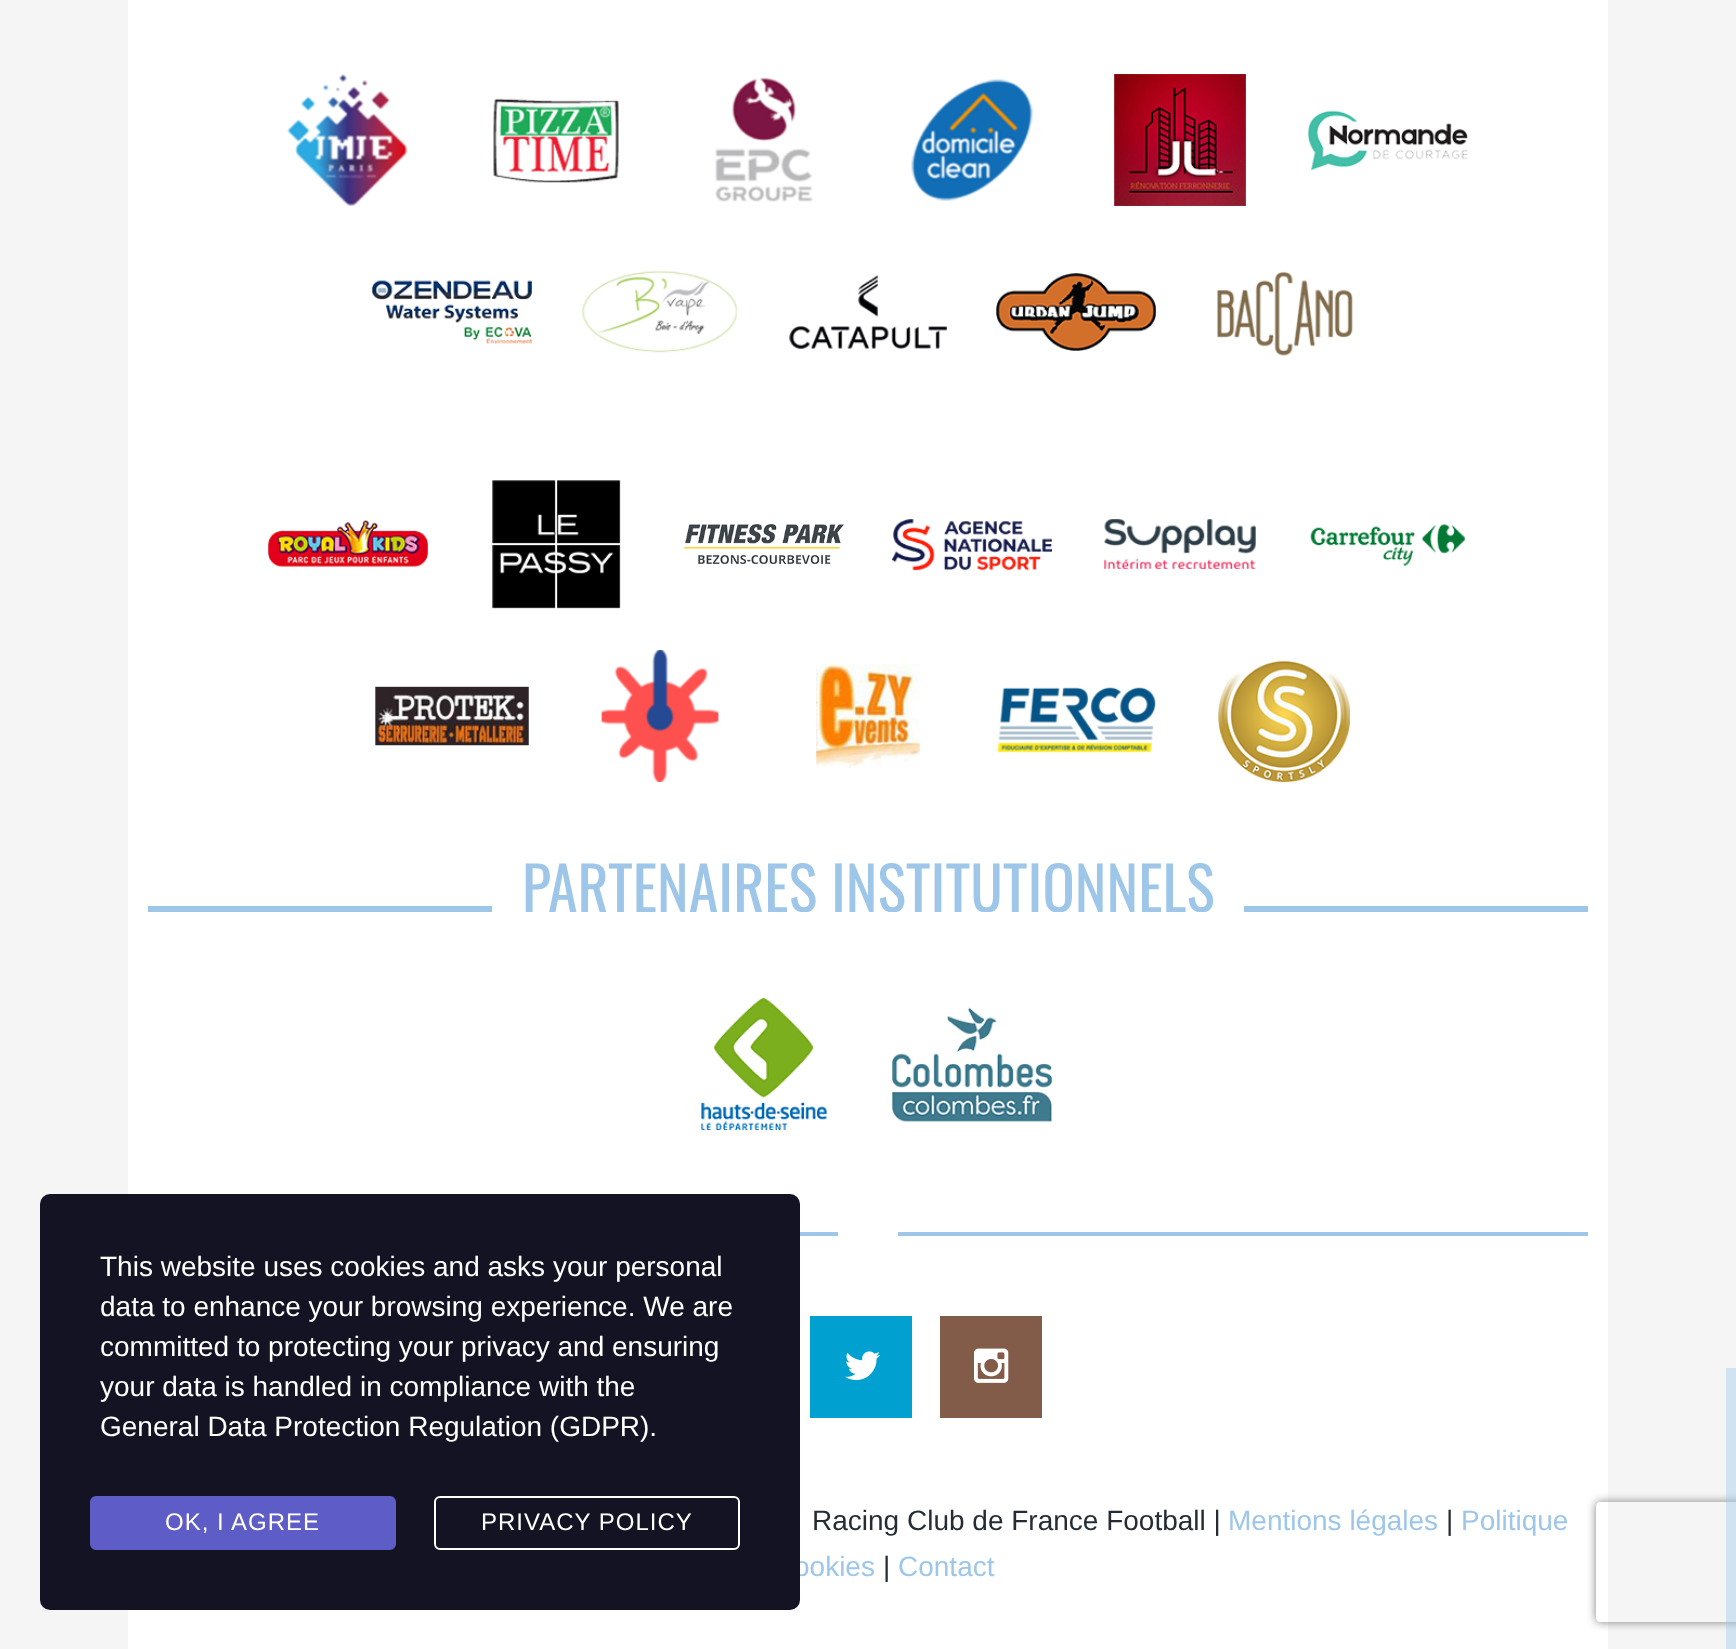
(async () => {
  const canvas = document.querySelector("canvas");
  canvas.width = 1736;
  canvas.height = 1649;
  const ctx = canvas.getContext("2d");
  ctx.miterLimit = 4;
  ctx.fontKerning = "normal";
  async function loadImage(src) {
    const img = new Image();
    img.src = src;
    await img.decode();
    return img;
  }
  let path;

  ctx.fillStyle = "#f5f5f5";
  ctx.fillRect(0, 0, 1736, 1649);
  ctx.fillStyle = "#ffffff";
  ctx.fillRect(128, 0, 1480, 1649);
  ctx.drawImage(await loadImage("img/1.png"), 287, 74, 121, 132);
  ctx.drawImage(await loadImage("img/2.png"), 493, 98, 126, 85);
  ctx.drawImage(await loadImage("img/3.png"), 715, 77, 98, 125);
  ctx.drawImage(await loadImage("img/4.png"), 911, 79, 122, 122);
  ctx.drawImage(await loadImage("img/5.png"), 1114, 74, 132, 132);
  ctx.drawImage(await loadImage("img/6.png"), 1308, 110, 160, 61);
  ctx.drawImage(await loadImage("img/7.png"), 372, 280, 160, 64);
  ctx.drawImage(await loadImage("img/8.png"), 582, 270, 155, 83);
  ctx.drawImage(await loadImage("img/9.png"), 789, 275, 158, 74);
  ctx.drawImage(await loadImage("img/10.png"), 996, 273, 160, 78);
  ctx.drawImage(await loadImage("img/11.png"), 1217, 271, 137, 85);
  ctx.drawImage(await loadImage("img/12.png"), 268, 520, 160, 47);
  ctx.drawImage(await loadImage("img/13.png"), 492, 480, 129, 129);
  ctx.drawImage(await loadImage("img/14.png"), 684, 524, 160, 40);
  ctx.drawImage(await loadImage("img/15.png"), 892, 519, 160, 52);
  ctx.drawImage(await loadImage("img/16.png"), 1104, 519, 152, 50);
  ctx.drawImage(await loadImage("img/17.png"), 1310, 524, 155, 42);
  ctx.drawImage(await loadImage("img/18.png"), 375, 686, 154, 60);
  ctx.drawImage(await loadImage("img/19.png"), 601, 650, 118, 132);
  ctx.drawImage(await loadImage("img/20.png"), 816, 664, 104, 104);
  ctx.drawImage(await loadImage("img/21.png"), 997, 687, 159, 66);
  ctx.drawImage(await loadImage("img/22.png"), 1218, 660, 132, 122);
  ctx.fillStyle = "#9dc6e9";
  ctx.fillRect(148, 906, 344, 6);
  ctx.fillRect(1244, 906, 344, 6);
  ctx.drawImage(await loadImage("img/23.png"), 701, 998, 126, 132);
  ctx.drawImage(await loadImage("img/24.png"), 892, 1007, 160, 115);
  for (const [x, y, w, h, color] of [
    [800, 1232, 38, 4, "#9dc6e9"],
    [898, 1232, 690, 4, "#9dc6e9"],
    [810, 1316, 102, 102, "#00a0d1"],
  ]) {
    ctx.fillStyle = color;
    ctx.fillRect(x, y, w, h);
  }
  ctx.drawImage(await loadImage("img/25.png"), 845, 1351, 35, 29);
  ctx.fillStyle = "#825c48";
  ctx.fillRect(940, 1316, 102, 102);
  ctx.drawImage(await loadImage("img/26.png"), 974, 1348, 35, 35);
  ctx.save();
  path = new Path2D("M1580 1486H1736V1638H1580ZM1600 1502H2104C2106 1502 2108 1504 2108 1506V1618C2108 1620 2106 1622 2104 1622H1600C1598 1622 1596 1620 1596 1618V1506C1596 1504 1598 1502 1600 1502Z");
  ctx.clip(path, "evenodd");
  ctx.fillStyle = "#808080";
  ctx.filter = "blur(5px)";
  ctx.beginPath();
  ctx.roundRect(1596, 1502, 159, 120, 4);
  ctx.fill();
  ctx.filter = "none";
  ctx.restore();
  ctx.fillStyle = "rgba(157, 198, 233, 0.41)";
  ctx.fillRect(1726, 1368, 10, 281);
  ctx.save();
  ctx.beginPath();
  ctx.rect(148, 862, 1440, 50);
  ctx.clip();
  ctx.font = "60px Oswald";
  ctx.fillStyle = "#9dc6e9";
  ctx.fillText("PARTENAIRES INSTITUTIONNELS", 522, 912);
  ctx.restore();
  ctx.font = "28px Liberation Sans";
  ctx.fillStyle = "#252c33";
  ctx.fillText("Racing Club de France Football |", 812, 1530);
  ctx.fillStyle = "#9dc6e9";
  ctx.fillText("Mentions légales", 1228, 1530);
  ctx.fillStyle = "#252c33";
  ctx.fillText("|", 1446, 1530);
  ctx.fillStyle = "#9dc6e9";
  ctx.fillText("Politique", 1461, 1530);
  ctx.fillText("ookies", 794, 1576);
  ctx.fillStyle = "#131323";
  ctx.beginPath();
  ctx.roundRect(40, 1194, 760, 416, 10);
  ctx.fill();
  ctx.beginPath();
  ctx.roundRect(435, 1497, 304, 52, 5);
  ctx.strokeStyle = "#ffffff";
  ctx.lineWidth = 2;
  ctx.stroke();
  ctx.letterSpacing = "1px";
  ctx.font = "24px Liberation Sans";
  ctx.fillStyle = "#ffffff";
  ctx.fillText("PRIVACY POLICY", 481, 1530);
  ctx.fillStyle = "#5e5cc7";
  ctx.beginPath();
  ctx.roundRect(91, 1497, 304, 52, 5);
  ctx.fill();
  ctx.strokeStyle = "#5e5cc7";
  ctx.stroke();
  ctx.fillStyle = "#ffffff";
  ctx.fillText("OK, I AGREE", 165, 1530);
  ctx.letterSpacing = "0px";
  ctx.font = "28px Liberation Sans";
  for (const [text, x, y] of [
    ["General Data Protection Regulation (GDPR).", 100, 1436],
    ["your data is handled in compliance with the", 100, 1396],
    ["committed to protecting your privacy and ensuring", 100, 1356],
    ["data to enhance your browsing experience. We are", 100, 1316],
    ["This website uses cookies and asks your personal", 100, 1276],
  ]) {
    ctx.fillText(text, x, y);
  }
  ctx.fillStyle = "#252c33";
  ctx.fillText("|", 883, 1576);
  ctx.fillStyle = "#9dc6e9";
  ctx.fillText("Contact", 898, 1576);
})();
